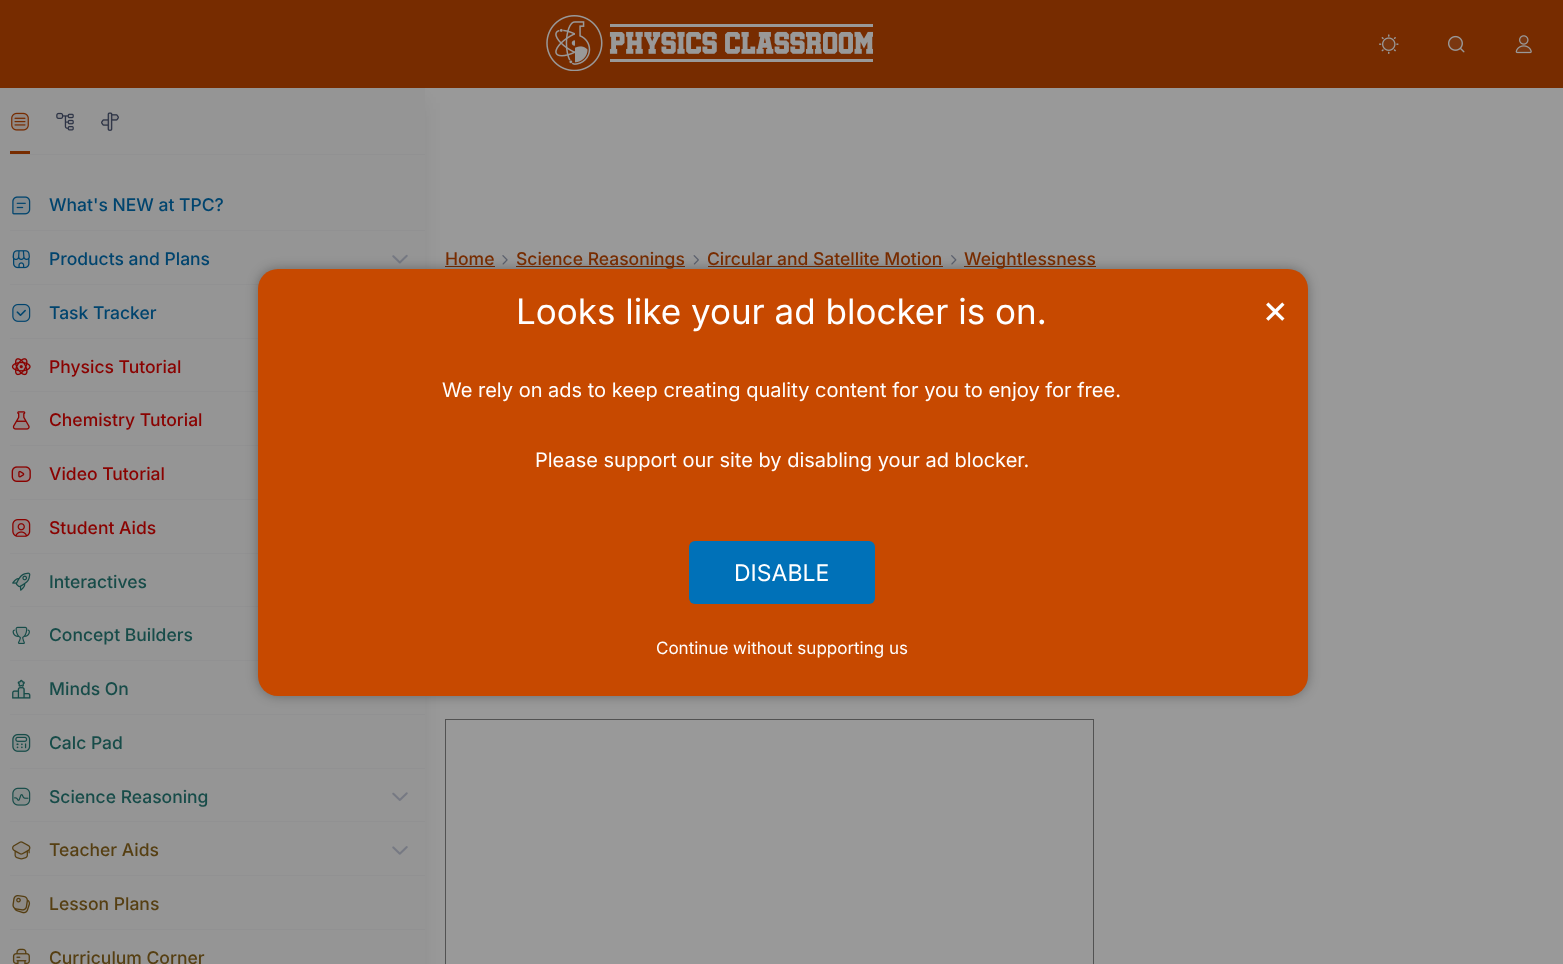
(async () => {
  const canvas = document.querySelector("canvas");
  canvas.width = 1563;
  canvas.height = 964;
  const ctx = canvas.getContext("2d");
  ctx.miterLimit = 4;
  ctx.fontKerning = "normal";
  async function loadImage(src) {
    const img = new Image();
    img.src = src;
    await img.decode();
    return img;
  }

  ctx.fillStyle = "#999999";
  ctx.fillRect(0, 0, 1563, 964);
  ctx.fillStyle = "#772c00";
  ctx.fillRect(445, 266, 50, 1);
  ctx.strokeStyle = "#525252";
  ctx.strokeRect(445.5, 719.5, 648, 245);
  ctx.fillStyle = "rgba(0, 0, 0, 0.1)";
  ctx.filter = "blur(9.5px)";
  ctx.beginPath();
  ctx.rect(4, 103, 417, 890);
  ctx.fill();
  ctx.filter = "none";
  ctx.fillStyle = "#772c00";
  ctx.fillRect(0, 0, 1563, 88);
  ctx.drawImage(await loadImage("img/1.png"), 546, 15, 327, 56);
  ctx.drawImage(await loadImage("img/2.png"), 1379, 34, 20, 20);
  ctx.drawImage(await loadImage("img/3.png"), 1382, 37, 14, 14);
  ctx.drawImage(await loadImage("img/4.png"), 1448, 35, 17, 18);
  ctx.drawImage(await loadImage("img/5.png"), 1449, 37, 13, 14);
  ctx.drawImage(await loadImage("img/6.png"), 1515, 35, 17, 19);
  ctx.drawImage(await loadImage("img/7.png"), 1515, 35, 17, 18);
  for (const [x, y, w, h, color] of [
    [0, 88, 425, 876, "#959595"],
    [10, 154, 415, 1, "#919192"],
    [10, 151, 20, 3, "#772c00"],
  ]) {
    ctx.fillStyle = color;
    ctx.fillRect(x, y, w, h);
  }
  ctx.drawImage(await loadImage("img/8.png"), 11, 112, 18, 19);
  ctx.drawImage(await loadImage("img/9.png"), 11, 114, 18, 17);
  ctx.drawImage(await loadImage("img/10.png"), 56, 112, 18, 19);
  ctx.drawImage(await loadImage("img/11.png"), 56, 113, 18, 18);
  ctx.drawImage(await loadImage("img/12.png"), 101, 112, 18, 19);
  ctx.drawImage(await loadImage("img/13.png"), 101, 112, 18, 19);
  ctx.fillStyle = "#919192";
  ctx.fillRect(10, 230, 415, 1);
  ctx.drawImage(await loadImage("img/14.png"), 12, 196, 19, 19);
  ctx.drawImage(await loadImage("img/15.png"), 12, 196, 19, 19);
  ctx.fillRect(10, 284, 249, 1);
  ctx.drawImage(await loadImage("img/16.png"), 12, 250, 18, 19);
  ctx.drawImage(await loadImage("img/17.png"), 12, 250, 18, 18);
  ctx.drawImage(await loadImage("img/18.png"), 392, 254, 16, 10);
  ctx.fillRect(10, 338, 248, 1);
  ctx.drawImage(await loadImage("img/19.png"), 12, 303, 19, 19);
  ctx.drawImage(await loadImage("img/20.png"), 12, 304, 18, 18);
  ctx.fillRect(10, 391, 248, 1);
  ctx.drawImage(await loadImage("img/21.png"), 11, 358, 20, 18);
  ctx.drawImage(await loadImage("img/22.png"), 12, 358, 19, 17);
  ctx.fillRect(10, 445, 248, 1);
  ctx.drawImage(await loadImage("img/23.png"), 12, 411, 18, 19);
  ctx.drawImage(await loadImage("img/24.png"), 13, 411, 17, 19);
  ctx.fillRect(10, 499, 248, 1);
  ctx.drawImage(await loadImage("img/25.png"), 11, 466, 20, 16);
  ctx.drawImage(await loadImage("img/26.png"), 11, 466, 20, 16);
  ctx.fillRect(10, 553, 248, 1);
  ctx.drawImage(await loadImage("img/27.png"), 12, 519, 19, 18);
  ctx.drawImage(await loadImage("img/28.png"), 12, 519, 17, 18);
  ctx.fillRect(10, 606, 248, 1);
  ctx.drawImage(await loadImage("img/29.png"), 12, 572, 19, 19);
  ctx.drawImage(await loadImage("img/30.png"), 12, 573, 17, 18);
  ctx.fillRect(10, 660, 248, 1);
  ctx.drawImage(await loadImage("img/31.png"), 12, 626, 18, 18);
  ctx.drawImage(await loadImage("img/32.png"), 17, 628, 9, 15);
  ctx.fillRect(10, 714, 415, 1);
  ctx.drawImage(await loadImage("img/33.png"), 12, 679, 19, 20);
  ctx.drawImage(await loadImage("img/34.png"), 12, 680, 19, 19);
  ctx.fillRect(10, 768, 415, 1);
  ctx.drawImage(await loadImage("img/35.png"), 12, 733, 19, 19);
  ctx.drawImage(await loadImage("img/36.png"), 12, 734, 17, 17);
  ctx.fillRect(10, 821, 415, 1);
  ctx.drawImage(await loadImage("img/37.png"), 12, 787, 19, 19);
  ctx.drawImage(await loadImage("img/38.png"), 12, 788, 17, 17);
  ctx.drawImage(await loadImage("img/39.png"), 392, 792, 16, 9);
  ctx.fillRect(10, 875, 415, 1);
  ctx.drawImage(await loadImage("img/40.png"), 12, 841, 19, 19);
  ctx.drawImage(await loadImage("img/41.png"), 12, 841, 18, 18);
  ctx.drawImage(await loadImage("img/42.png"), 392, 846, 16, 9);
  ctx.fillRect(10, 929, 415, 1);
  ctx.drawImage(await loadImage("img/43.png"), 12, 895, 19, 19);
  ctx.drawImage(await loadImage("img/44.png"), 12, 895, 18, 18);
  ctx.drawImage(await loadImage("img/45.png"), 12, 948, 18, 16);
  ctx.drawImage(await loadImage("img/46.png"), 13, 950, 17, 14);
  ctx.drawImage(await loadImage("img/47.png"), 502, 255, 6, 10);
  ctx.fillStyle = "#772c00";
  ctx.fillRect(516, 266, 169, 1);
  ctx.drawImage(await loadImage("img/48.png"), 693, 255, 6, 10);
  ctx.fillRect(708, 266, 235, 1);
  ctx.drawImage(await loadImage("img/49.png"), 951, 255, 6, 10);
  ctx.fillRect(964, 266, 132, 1);
  ctx.fillStyle = "rgba(0, 0, 0, 0.3)";
  ctx.filter = "blur(6px)";
  ctx.beginPath();
  ctx.roundRect(258, 269, 1050, 427, 20);
  ctx.fill();
  ctx.filter = "none";
  ctx.fillStyle = "#c74900";
  ctx.beginPath();
  ctx.roundRect(258, 269, 1050, 427, 20);
  ctx.fill();
  ctx.fillStyle = "#0071b8";
  ctx.beginPath();
  ctx.roundRect(689, 541, 186, 63, 6);
  ctx.fill();
  ctx.font = "500 17.5px Inter";
  ctx.fillStyle = "#00446e";
  for (const [text, x, y] of [
    ["What's NEW at TPC?", 49, 211],
    ["Products and Plans", 49, 265],
    ["Task Tracker", 49, 319],
  ]) {
    ctx.fillText(text, x, y);
  }
  ctx.fillStyle = "#8a0200";
  for (const [text, x, y] of [
    ["Physics Tutorial", 49, 373],
    ["Chemistry Tutorial", 49, 426],
    ["Video Tutorial", 49, 480],
    ["Student Aids", 49, 534],
  ]) {
    ctx.fillText(text, x, y);
  }
  ctx.fillStyle = "#174c49";
  for (const [text, x, y] of [
    ["Interactives", 49, 588],
    ["Concept Builders", 49, 641],
    ["Minds On", 49, 695],
    ["Calc Pad", 49, 749],
    ["Science Reasoning", 49, 803],
  ]) {
    ctx.fillText(text, x, y);
  }
  ctx.fillStyle = "#563f12";
  for (const [text, x, y] of [
    ["Teacher Aids", 49, 856],
    ["Lesson Plans", 49, 910],
    ["Curriculum Corner", 49, 964],
  ]) {
    ctx.fillText(text, x, y);
  }
  ctx.fillStyle = "#772c00";
  for (const [text, x, y] of [
    ["Home", 445, 265],
    ["Science Reasonings", 516, 265],
    ["Circular and Satellite Motion", 707, 265],
    ["Weightlessness", 964, 265],
  ]) {
    ctx.fillText(text, x, y);
  }
  ctx.font = "35px Inter";
  ctx.fillStyle = "#ffffff";
  ctx.fillText("Looks like your ad blocker is on.", 516, 324);
  ctx.font = "40px Inter";
  ctx.fillText("×", 1262, 323);
  ctx.font = "20px Inter";
  ctx.fillText("We rely on ads to keep creating quality content for you to enjoy for free.", 442, 397);
  ctx.fillText("Please support our site by disabling your ad blocker.", 535, 467);
  ctx.font = "23px Inter";
  ctx.fillText("DISABLE", 734, 581);
  ctx.font = "17px Inter";
  ctx.fillText("Continue without supporting us", 656, 654);
})();
